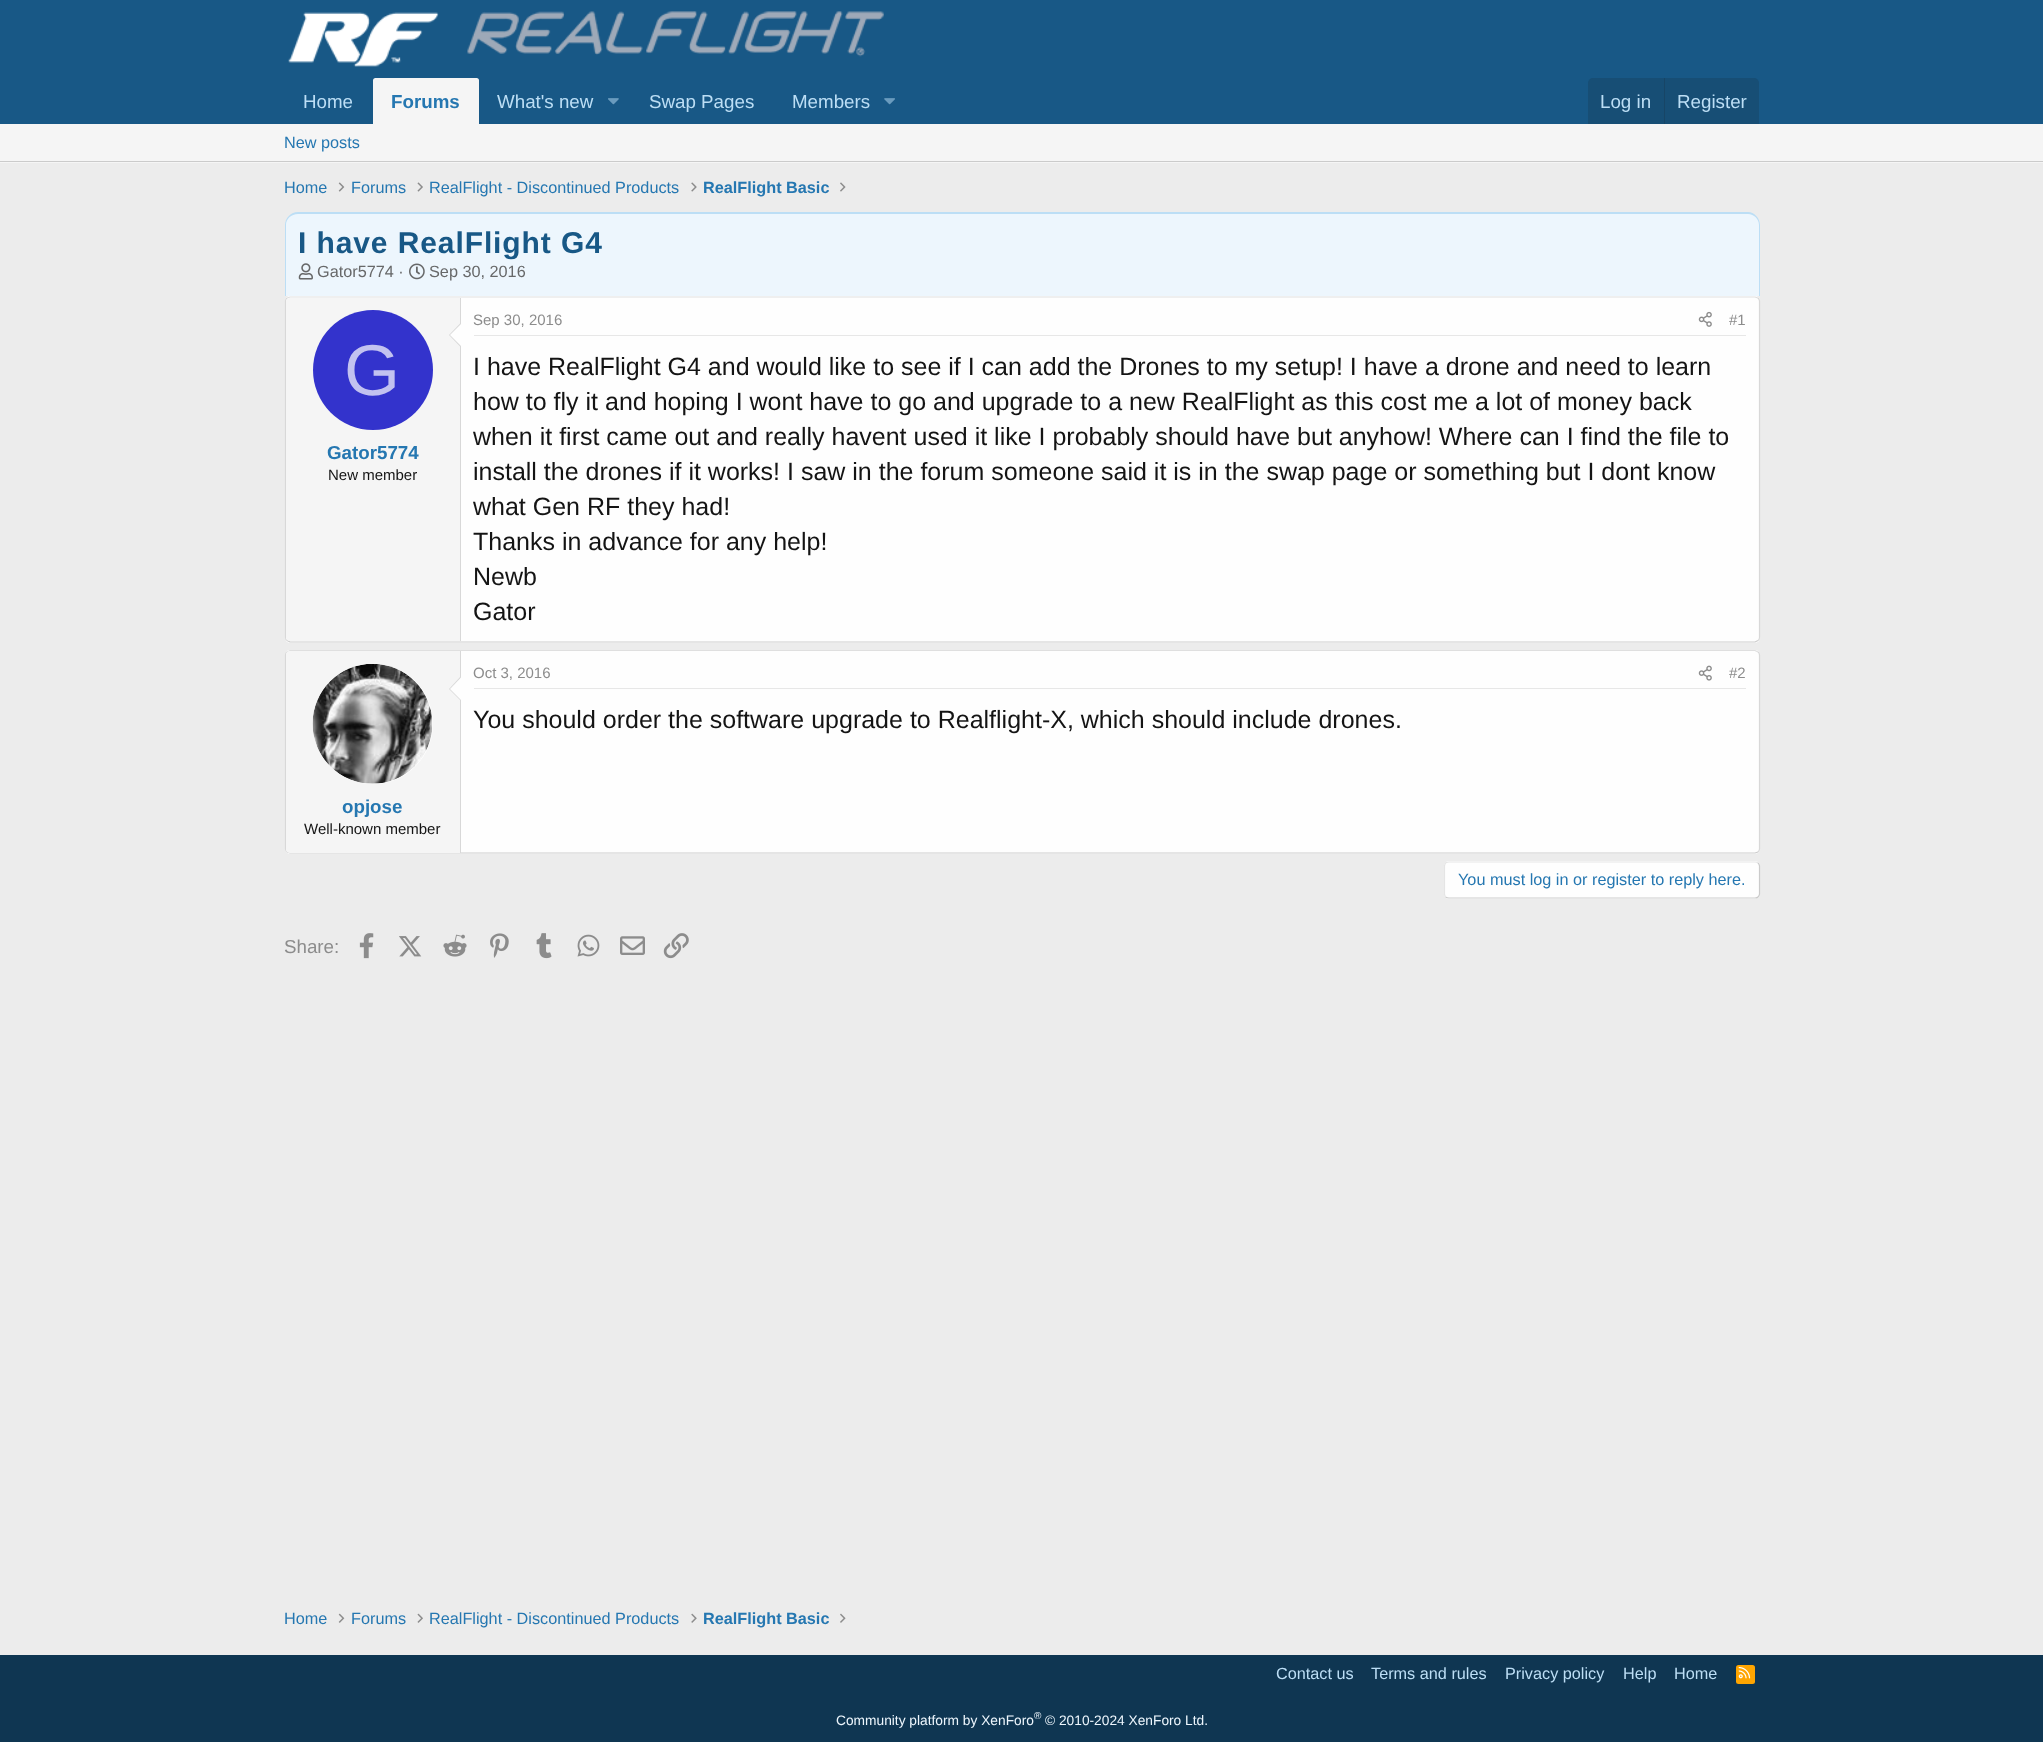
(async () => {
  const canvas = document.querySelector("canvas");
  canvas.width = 2043;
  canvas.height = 1742;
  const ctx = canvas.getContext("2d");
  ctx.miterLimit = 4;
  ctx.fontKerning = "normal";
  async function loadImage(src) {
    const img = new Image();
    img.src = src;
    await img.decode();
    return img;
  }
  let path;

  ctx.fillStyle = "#ececec";
  ctx.fillRect(0, 0, 2043, 1742);
  ctx.fillStyle = "#185886";
  ctx.fillRect(0, 0, 2043, 124);
  ctx.drawImage(await loadImage("img/1.png"), 288, 11, 596, 56);
  ctx.fillStyle = "#f5f5f5";
  ctx.beginPath();
  ctx.roundRect(373, 78, 106, 46, [2.5, 2.5, 0, 0]);
  ctx.fill();
  ctx.drawImage(await loadImage("img/2.png"), 608, 98, 11, 7);
  ctx.drawImage(await loadImage("img/3.png"), 884, 98, 11, 7);
  ctx.fillStyle = "#174e75";
  ctx.beginPath();
  ctx.roundRect(1588, 78, 171, 46, [5, 5, 0, 0]);
  ctx.fill();
  for (const [x, y, w, h, color] of [
    [1664, 78, 1, 46, "#174566"],
    [0, 124, 2043, 39, "#f5f5f5"],
    [0, 161, 2043, 1, "#cbcbcb"],
  ]) {
    ctx.fillStyle = color;
    ctx.fillRect(x, y, w, h);
  }
  ctx.drawImage(await loadImage("img/4.png"), 338, 182, 7, 10);
  ctx.drawImage(await loadImage("img/5.png"), 417, 182, 6, 10);
  ctx.drawImage(await loadImage("img/6.png"), 691, 182, 6, 10);
  ctx.drawImage(await loadImage("img/7.png"), 840, 182, 6, 10);
  ctx.fillStyle = "#edf6fd";
  ctx.beginPath();
  ctx.roundRect(285, 213, 1475, 83, [13, 13, 0, 0]);
  ctx.fill();
  ctx.fillStyle = "#bcdef5";
  path = new Path2D("M298 212H1748C1754 212 1760 218 1760 225V296H285V225C285 218 291 212 298 212ZM298 214H1748C1754 214 1759 219 1759 225V296H286V225C286 219 291 214 298 214Z");
  ctx.fill(path, "evenodd");
  ctx.drawImage(await loadImage("img/8.png"), 298, 263, 15, 17);
  ctx.drawImage(await loadImage("img/9.png"), 409, 263, 16, 17);
  ctx.fillStyle = "#fefefe";
  ctx.beginPath();
  ctx.roundRect(285, 296, 1475, 347, 5);
  ctx.fill();
  path = new Path2D("M287 298L290 297H1755L1758 298");
  ctx.strokeStyle = "#dfdfdf";
  ctx.lineWidth = 1.2;
  ctx.stroke(path);
  path = new Path2D("M1758 298C1759 299 1759.5 300 1759.5 301V637.5C1759.5 638.5 1759 640 1758 640.5");
  ctx.strokeStyle = "#d8d8d8";
  ctx.stroke(path);
  path = new Path2D("M1758 640.5L1755 642H290L287 640.5");
  ctx.strokeStyle = "#cbcbcb";
  ctx.stroke(path);
  path = new Path2D("M287 640.5C286 640 285.5 638.5 285.5 637.5V301C285.5 300 286 299 287 298");
  ctx.strokeStyle = "#d8d8d8";
  ctx.stroke(path);
  ctx.fillStyle = "#f5f5f5";
  ctx.beginPath();
  ctx.roundRect(286, 298, 175, 343, [4, 0, 0, 4]);
  ctx.fill();
  ctx.fillStyle = "#d8d8d8";
  ctx.fillRect(460, 298, 1, 343);
  path = new Path2D("M461 322.5V347.5L449 335Z");
  ctx.fill(path);
  ctx.fillStyle = "#fefefe";
  path = new Path2D("M461 324V346L450 335Z");
  ctx.fill(path);
  ctx.fillStyle = "#3333cc";
  ctx.beginPath();
  ctx.arc(373, 370, 60, 0, Math.PI * 2);
  ctx.fill();
  ctx.fillStyle = "#e7e7e7";
  ctx.fillRect(474, 335, 1272, 1);
  ctx.drawImage(await loadImage("img/10.png"), 1698, 311, 14, 16);
  ctx.fillStyle = "#fefefe";
  ctx.beginPath();
  ctx.roundRect(285, 650, 1475, 204, 5);
  ctx.fill();
  path = new Path2D("M287 652L290 650.5H1755L1758 652");
  ctx.strokeStyle = "#dfdfdf";
  ctx.stroke(path);
  path = new Path2D("M1758 652C1759 652.5 1759.5 654 1759.5 655V849C1759.5 850 1759 851 1758 852");
  ctx.strokeStyle = "#d8d8d8";
  ctx.stroke(path);
  path = new Path2D("M1758 852L1755 853H290L287 852");
  ctx.strokeStyle = "#cbcbcb";
  ctx.stroke(path);
  path = new Path2D("M287 852C286 851 285.5 850 285.5 849V655C285.5 654 286 652.5 287 652");
  ctx.strokeStyle = "#d8d8d8";
  ctx.stroke(path);
  ctx.fillStyle = "#e7e7e7";
  ctx.fillRect(474, 688, 1272, 1);
  ctx.drawImage(await loadImage("img/11.png"), 1698, 665, 14, 16);
  ctx.fillStyle = "#f5f5f5";
  ctx.beginPath();
  ctx.roundRect(286, 651, 175, 202, [4, 0, 0, 4]);
  ctx.fill();
  ctx.fillStyle = "#d8d8d8";
  ctx.fillRect(460, 651, 1, 202);
  ctx.fillStyle = "#fefefe";
  ctx.beginPath();
  ctx.arc(373, 724, 60, 0, Math.PI * 2);
  ctx.fill();
  ctx.drawImage(await loadImage("img/12.png"), 312, 664, 121, 120);
  ctx.fillStyle = "#d8d8d8";
  path = new Path2D("M461 676V701L449 689Z");
  ctx.fill(path);
  ctx.fillStyle = "#fefefe";
  path = new Path2D("M461 677.5V700L450 689Z");
  ctx.fill(path);
  ctx.beginPath();
  ctx.roundRect(1444, 861, 316, 38, 5);
  ctx.fill();
  path = new Path2D("M1758 863C1759 864 1759.5 865 1759.5 866V894C1759.5 895 1759 896 1758 897C1757.5 897.5 1756 898 1755 898H1449C1447.5 898 1446.5 897.5 1445.5 897");
  ctx.strokeStyle = "#cbcbcb";
  ctx.stroke(path);
  path = new Path2D("M1445.5 897C1445 896 1444.5 895 1444.5 894V866C1444.5 865 1445 864 1445.5 863C1446.5 862.5 1447.5 862 1449 862H1755C1756 862 1757.5 862.5 1758 863");
  ctx.strokeStyle = "#e5e5e5";
  ctx.stroke(path);
  ctx.drawImage(await loadImage("img/13.png"), 359, 933, 15, 26);
  ctx.drawImage(await loadImage("img/14.png"), 399, 936, 23, 21);
  ctx.drawImage(await loadImage("img/15.png"), 443, 934, 24, 23);
  ctx.drawImage(await loadImage("img/16.png"), 490, 933, 19, 25);
  ctx.drawImage(await loadImage("img/17.png"), 536, 933, 16, 26);
  ctx.drawImage(await loadImage("img/18.png"), 577, 934, 23, 23);
  ctx.drawImage(await loadImage("img/19.png"), 620, 936, 25, 19);
  ctx.drawImage(await loadImage("img/20.png"), 663, 933, 26, 26);
  ctx.drawImage(await loadImage("img/21.png"), 338, 1613, 7, 10);
  ctx.drawImage(await loadImage("img/22.png"), 417, 1613, 6, 10);
  ctx.drawImage(await loadImage("img/23.png"), 691, 1613, 6, 10);
  ctx.drawImage(await loadImage("img/24.png"), 840, 1613, 6, 10);
  ctx.fillStyle = "#0f3652";
  ctx.fillRect(0, 1655, 2043, 87);
  ctx.fillStyle = "#ffa500";
  ctx.beginPath();
  ctx.roundRect(1736, 1665, 19, 19, 2.5);
  ctx.fill();
  ctx.drawImage(await loadImage("img/25.png"), 1738, 1666, 13, 13);
  ctx.font = "18.75px Liberation Sans";
  ctx.fillStyle = "#bcdef5";
  ctx.fillText("Home", 303, 108);
  ctx.font = "bold 18.75px Liberation Sans";
  ctx.fillStyle = "#2577b1";
  ctx.fillText("Forums", 391, 108);
  ctx.font = "18.75px Liberation Sans";
  ctx.fillStyle = "#bcdef5";
  for (const [text, x, y] of [
    ["What's new", 497, 108],
    ["Swap Pages", 649, 108],
    ["Members", 792, 108],
    ["Log in", 1600, 108],
    ["Register", 1677, 108],
  ]) {
    ctx.fillText(text, x, y);
  }
  ctx.font = "16.25px Liberation Sans";
  ctx.fillStyle = "#2577b1";
  for (const [text, x, y] of [
    ["New posts", 284, 148],
    ["Home", 284, 193],
    ["Forums", 351, 193],
    ["RealFlight - Discontinued Products", 429, 193],
  ]) {
    ctx.fillText(text, x, y);
  }
  ctx.font = "bold 16.25px Liberation Sans";
  ctx.fillText("RealFlight Basic", 703, 193);
  ctx.letterSpacing = "0.9px";
  ctx.font = "bold 30px Liberation Sans";
  ctx.fillStyle = "#185886";
  ctx.fillText("I have RealFlight G4", 298, 253);
  ctx.letterSpacing = "0px";
  ctx.font = "16.25px Liberation Sans";
  ctx.fillStyle = "#676869";
  ctx.fillText("Gator5774 ·", 317, 277);
  ctx.fillText("Sep 30, 2016", 429, 277);
  ctx.font = "72px Liberation Sans";
  ctx.fillStyle = "#c2c2f0";
  ctx.fillText("G", 344, 395);
  ctx.font = "bold 18.75px Liberation Sans";
  ctx.fillStyle = "#2577b1";
  ctx.fillText("Gator5774", 327, 459);
  ctx.font = "15px Liberation Sans";
  ctx.fillStyle = "#141414";
  ctx.fillText("New member", 328, 480);
  ctx.fillStyle = "#8c8c8c";
  ctx.fillText("Sep 30, 2016", 473, 325);
  ctx.fillText("#1", 1729, 325);
  ctx.font = "25px Liberation Sans";
  ctx.fillStyle = "#141414";
  for (const [text, x, y] of [
    ["I have RealFlight G4 and would like to see if I can add the Drones to my setup! I have a drone and need to learn", 473, 375],
    ["how to fly it and hoping I wont have to go and upgrade to a new RealFlight as this cost me a lot of money back", 473, 410],
    ["when it first came out and really havent used it like I probably should have but anyhow! Where can I find the file to", 473, 445],
    ["install the drones if it works! I saw in the forum someone said it is in the swap page or something but I dont know", 473, 480],
    ["what Gen RF they had!", 473, 515],
    ["Thanks in advance for any help!", 473, 550],
    ["Newb", 473, 585],
    ["Gator", 473, 620],
  ]) {
    ctx.fillText(text, x, y);
  }
  ctx.font = "15px Liberation Sans";
  ctx.fillStyle = "#8c8c8c";
  ctx.fillText("Oct 3, 2016", 473, 678);
  ctx.fillText("#2", 1729, 678);
  ctx.font = "25px Liberation Sans";
  ctx.fillStyle = "#141414";
  ctx.fillText("You should order the software upgrade to Realflight-X, which should include drones.", 473, 728);
  ctx.font = "bold 18.75px Liberation Sans";
  ctx.fillStyle = "#2577b1";
  ctx.fillText("opjose", 342, 813);
  ctx.font = "15px Liberation Sans";
  ctx.fillStyle = "#141414";
  ctx.fillText("Well-known member", 304, 834);
  ctx.font = "16.25px Liberation Sans";
  ctx.fillStyle = "#2577b1";
  ctx.fillText("You must log in or register to reply here.", 1458, 885);
  ctx.font = "18.75px Liberation Sans";
  ctx.fillStyle = "#8c8c8c";
  ctx.fillText("Share:", 284, 953);
  ctx.font = "16.25px Liberation Sans";
  ctx.fillStyle = "#2577b1";
  for (const [text, x, y] of [
    ["Home", 284, 1624],
    ["Forums", 351, 1624],
    ["RealFlight - Discontinued Products", 429, 1624],
  ]) {
    ctx.fillText(text, x, y);
  }
  ctx.font = "bold 16.25px Liberation Sans";
  ctx.fillText("RealFlight Basic", 703, 1624);
  ctx.font = "16.25px Liberation Sans";
  ctx.fillStyle = "#bcdef5";
  for (const [text, x, y] of [
    ["Contact us", 1276, 1679],
    ["Terms and rules", 1371, 1679],
    ["Privacy policy", 1505, 1679],
    ["Help", 1623, 1679],
    ["Home", 1674, 1679],
  ]) {
    ctx.fillText(text, x, y);
  }
  ctx.font = "13.75px Liberation Sans";
  ctx.fillStyle = "#edf6fd";
  ctx.fillText("Community platform by XenForo", 836, 1725);
  ctx.font = "10px Liberation Sans";
  ctx.fillText("®", 1034, 1719);
  ctx.font = "13.75px Liberation Sans";
  ctx.fillText("© 2010-2024 XenForo Ltd.", 1045, 1725);
})();
